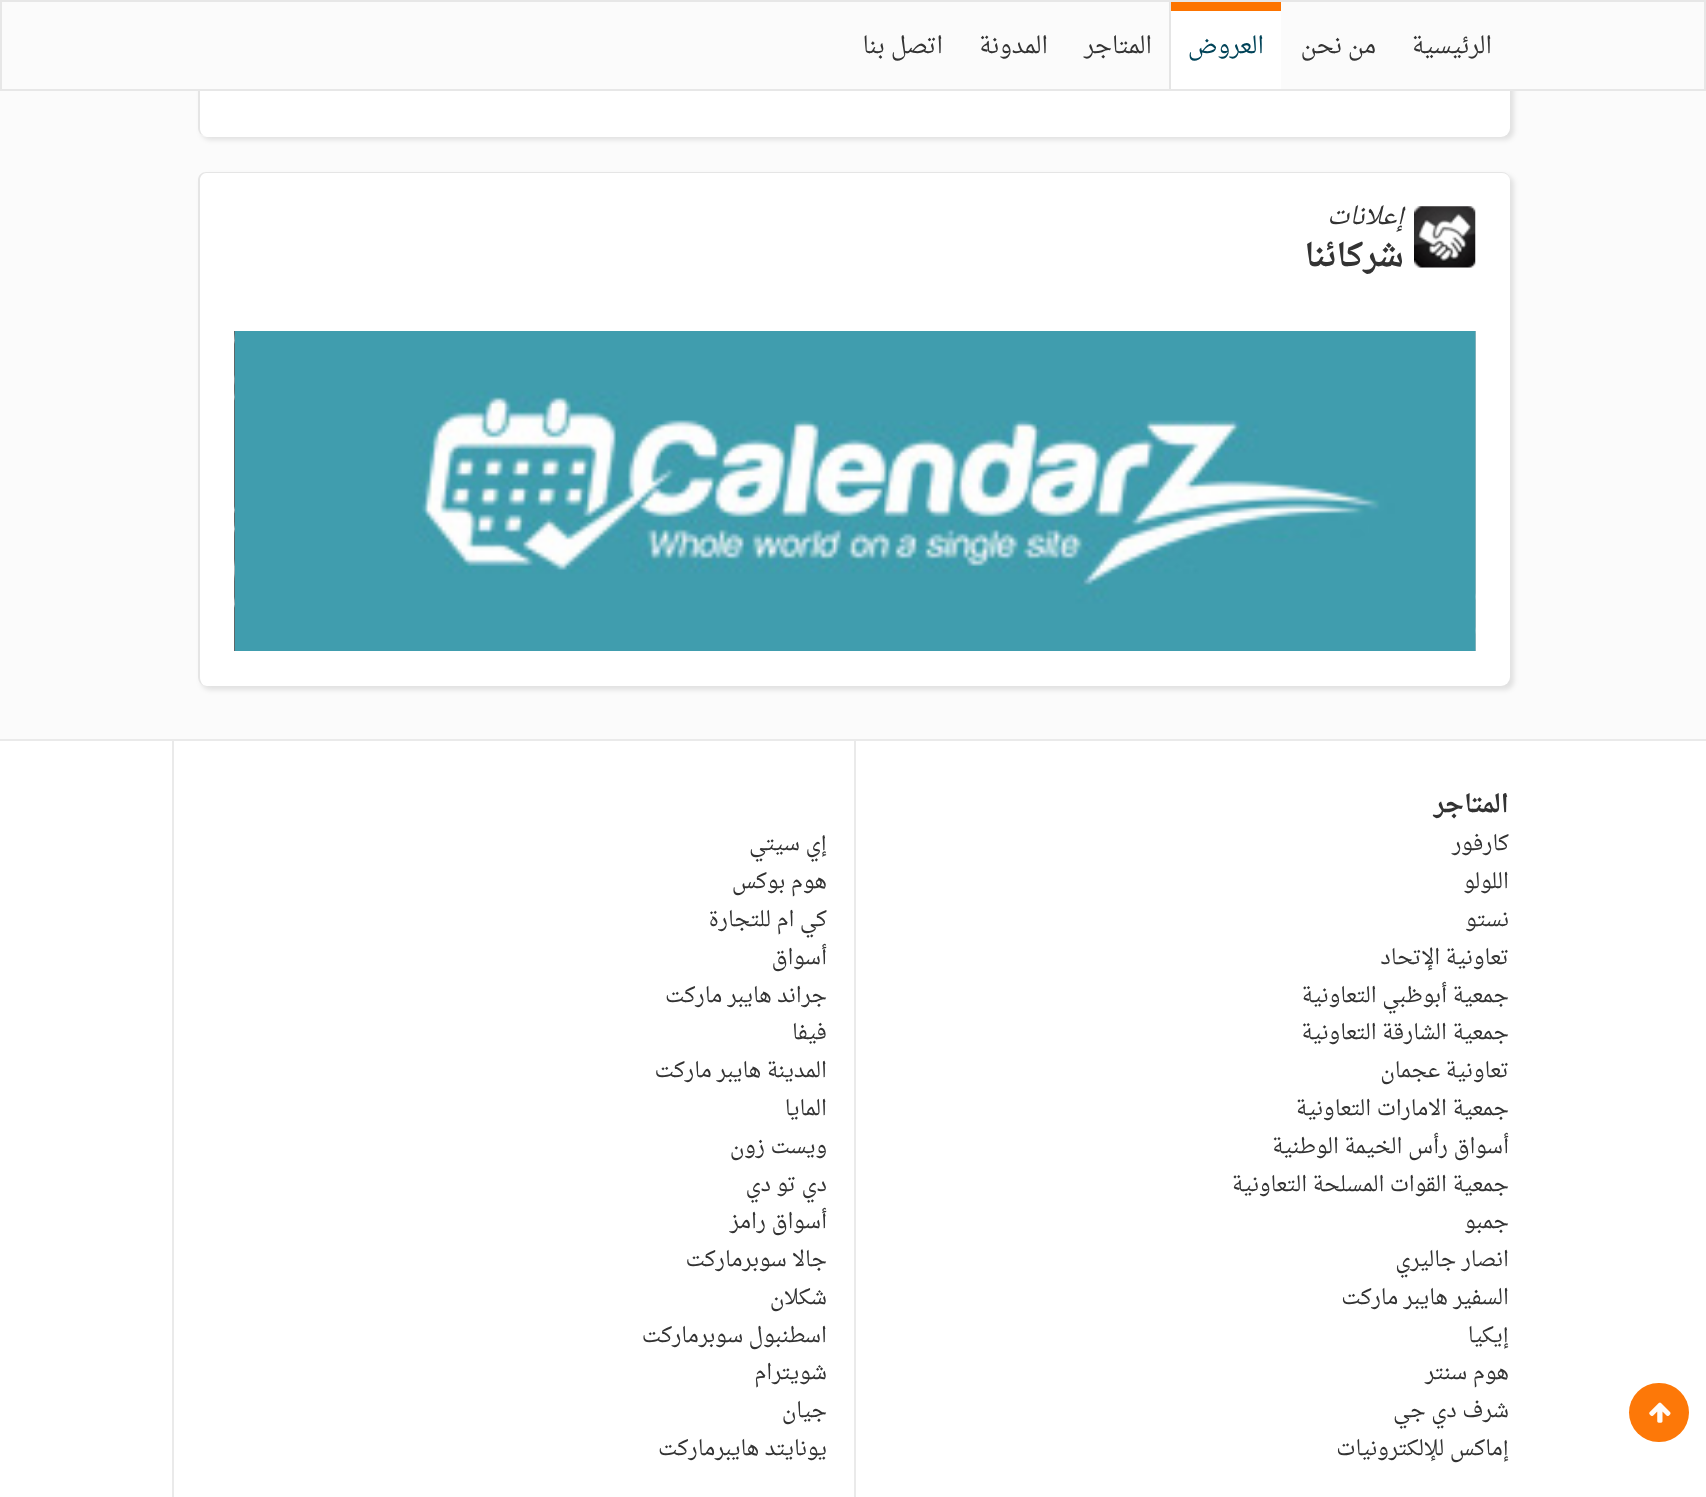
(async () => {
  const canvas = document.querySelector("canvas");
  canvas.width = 1706;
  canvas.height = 1497;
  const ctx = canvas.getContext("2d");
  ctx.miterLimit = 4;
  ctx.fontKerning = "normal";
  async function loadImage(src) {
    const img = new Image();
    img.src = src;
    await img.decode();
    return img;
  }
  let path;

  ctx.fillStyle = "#ffffff";
  ctx.fillRect(0, 0, 1706, 1497);
  ctx.fillStyle = "#fbfbfb";
  ctx.fillRect(0, 91, 1706, 648);
  ctx.fillStyle = "rgba(0, 0, 0, 0.1)";
  ctx.filter = "blur(2.5px)";
  ctx.beginPath();
  ctx.roundRect(201, -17, 1313, 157, 9);
  ctx.fill();
  ctx.filter = "none";
  ctx.fillStyle = "#ffffff";
  ctx.beginPath();
  ctx.roundRect(198, -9, 1312, 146, 9);
  ctx.fill();
  ctx.fillStyle = "#e5e5e5";
  path = new Path2D("M206-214H1502C1506-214 1510-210 1510-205V128C1510 133 1506 136 1502 136H206C202 136 198 133 198 128V-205C198-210 202-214 206-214ZM206-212H1502C1506-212 1510-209 1510-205V128C1510 133 1506 136 1502 136H206C203 136 200 133 200 128V-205C200-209 203-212 206-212Z");
  ctx.fill(path, "evenodd");
  ctx.fillStyle = "#fbfbfb";
  ctx.beginPath();
  ctx.rect(1, 1, 1704, 89);
  ctx.fill();
  ctx.strokeStyle = "#e7e7e7";
  ctx.lineWidth = 2;
  ctx.stroke();
  for (const [x, y, w, h, color] of [
    [1169, 2, 2, 87, "#e5e5e5"],
    [1171, 11, 110, 78, "#ffffff"],
    [1171, 2, 110, 9, "#fd7400"],
  ]) {
    ctx.fillStyle = color;
    ctx.fillRect(x, y, w, h);
  }
  ctx.fillStyle = "#fd7808";
  ctx.beginPath();
  ctx.roundRect(1629, 1383, 60, 59, 29.5);
  ctx.fill();
  ctx.drawImage(await loadImage("img/1.png"), 1649, 1402, 22, 21);
  ctx.fillStyle = "#eaeaea";
  ctx.fillRect(0, 739, 1706, 2);
  ctx.fillStyle = "rgba(0, 0, 0, 0.1)";
  ctx.filter = "blur(2.5px)";
  ctx.beginPath();
  ctx.roundRect(201, 175, 1313, 515, 9);
  ctx.fill();
  ctx.filter = "none";
  ctx.fillStyle = "#ffffff";
  ctx.beginPath();
  ctx.roundRect(198, 172, 1312, 514, 9);
  ctx.fill();
  ctx.fillStyle = "#e5e5e5";
  path = new Path2D("M206 172H1502C1506 172 1510 175 1510 180V677C1510 682 1506 686 1502 686H206C202 686 198 682 198 677V180C198 175 202 172 206 172ZM206 173H1502C1506 173 1510 176 1510 180V677C1510 682 1506 686 1502 686H206C203 686 200 682 200 677V180C200 176 203 173 206 173Z");
  ctx.fill(path, "evenodd");
  ctx.drawImage(await loadImage("img/2.png"), 1414, 206, 62, 62);
  ctx.drawImage(await loadImage("img/4.png"), 1475, 331, 1, 320);
  ctx.drawImage(await loadImage("img/3.png"), 234, 331, 1242, 320);
  ctx.drawImage(await loadImage("img/5.png"), 234, 331, 1, 320);
  ctx.fillStyle = "#eaeaea";
  ctx.fillRect(854, 740, 2, 757);
  ctx.fillRect(172, 740, 2, 757);
  ctx.direction = "rtl";
  ctx.font = "23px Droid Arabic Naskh";
  ctx.fillStyle = "#333333";
  ctx.fillText("الرئيسية", 1492, 53);
  ctx.fillText("من نحن", 1376, 53);
  ctx.fillStyle = "#004358";
  ctx.fillText("العروض", 1264, 53);
  ctx.fillStyle = "#333333";
  for (const [text, x, y] of [
    ["المتاجر", 1152, 53],
    ["المدونة", 1048, 53],
    ["اتصل بنا", 943, 53],
  ]) {
    ctx.fillText(text, x, y);
  }
  ctx.font = "italic 24.5px Droid Arabic Naskh";
  ctx.fillText("إعلانات", 1404, 224);
  ctx.font = "bold 31.5px Droid Arabic Naskh";
  ctx.fillText("شركائنا", 1404, 266);
  ctx.font = "bold 24.5px Droid Arabic Naskh";
  ctx.fillText("المتاجر", 1509, 812);
  ctx.font = "21px Droid Arabic Naskh";
  for (const [text, x, y] of [
    ["كارفور", 1509, 850],
    ["اللولو", 1509, 888],
    ["نستو", 1509, 926],
    ["تعاونية الإتحاد", 1509, 964],
    ["جمعية أبوظبي التعاونية", 1509, 1002],
    ["جمعية الشارقة التعاونية", 1509, 1039],
    ["تعاونية عجمان", 1509, 1077],
    ["جمعية الامارات التعاونية", 1509, 1115],
    ["أسواق رأس الخيمة الوطنية", 1509, 1153],
    ["جمعية القوات المسلحة التعاونية", 1509, 1191],
    ["جمبو", 1509, 1228],
    ["انصار جاليري", 1509, 1266],
    ["السفير هايبر ماركت", 1509, 1304],
    ["إيكيا", 1509, 1342],
    ["هوم سنتر", 1509, 1379],
    ["شرف دي جي", 1509, 1417],
    ["إماكس للإلكترونيات", 1509, 1455],
    ["إي سيتي", 827, 850],
    ["هوم بوكس", 827, 888],
    ["كي ام للتجارة", 827, 926],
    ["أسواق", 827, 964],
    ["جراند هايبر ماركت", 827, 1002],
    ["فيفا", 827, 1039],
    ["المدينة هايبر ماركت", 827, 1077],
    ["المايا", 827, 1115],
    ["ويست زون", 827, 1153],
    ["دي تو دي", 827, 1191],
    ["أسواق رامز", 827, 1228],
    ["جالا سوبرماركت", 827, 1266],
    ["شكلان", 827, 1304],
    ["اسطنبول سوبرماركت", 827, 1342],
    ["شويترام", 827, 1379],
    ["جيان", 827, 1417],
    ["يونايتد هايبرماركت", 827, 1455],
  ]) {
    ctx.fillText(text, x, y);
  }
})();
